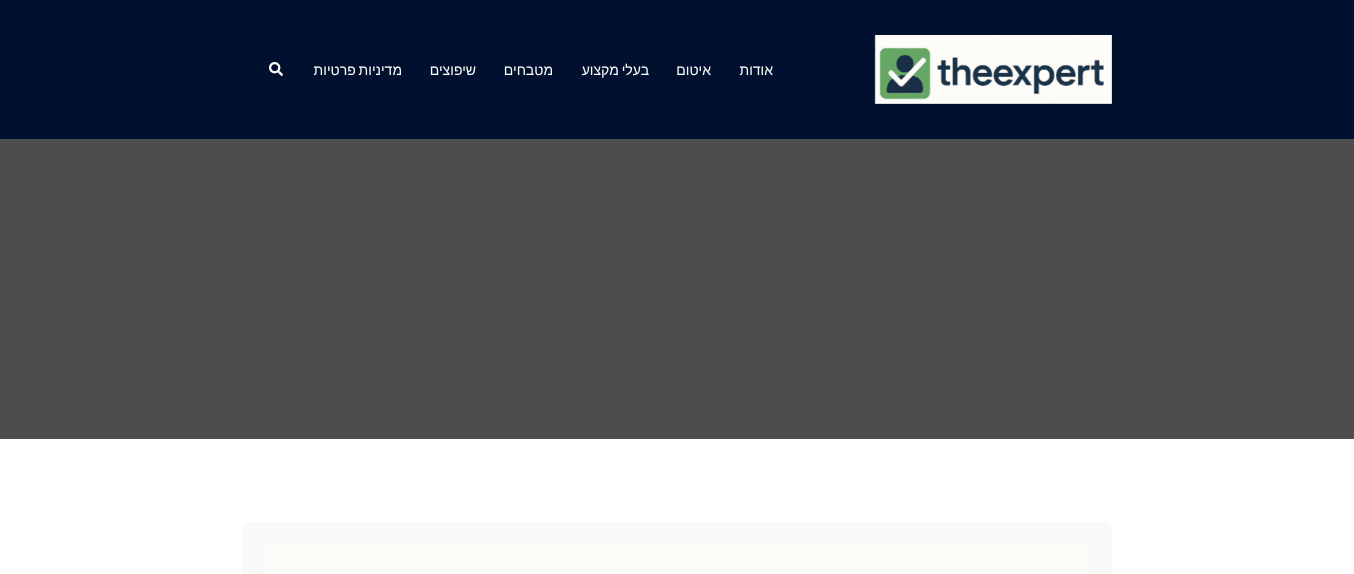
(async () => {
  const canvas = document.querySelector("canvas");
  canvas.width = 1354;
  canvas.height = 574;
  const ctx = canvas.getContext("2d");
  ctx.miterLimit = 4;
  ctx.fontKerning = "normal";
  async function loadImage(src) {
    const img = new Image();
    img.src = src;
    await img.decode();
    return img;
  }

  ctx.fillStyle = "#ffffff";
  ctx.fillRect(0, 0, 1354, 574);
  ctx.fillStyle = "#00102e";
  ctx.fillRect(0, 0, 1354, 139);
  ctx.drawImage(await loadImage("img/1.png"), 874, 35, 238, 69);
  ctx.drawImage(await loadImage("img/2.png"), 269, 62, 14, 14);
  ctx.fillStyle = "#4d4d4d";
  ctx.fillRect(0, 139, 1354, 300);
  ctx.fillStyle = "#fafafa";
  ctx.beginPath();
  ctx.roundRect(242, 522, 870, 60, 8);
  ctx.fill();
  ctx.fillStyle = "#fdfcf8";
  ctx.fillRect(266, 546, 822, 28);
  ctx.direction = "rtl";
  ctx.font = "14px Liberation Sans";
  ctx.fillStyle = "#ffffff";
  ctx.fillText("אודות", 773, 75);
  ctx.fillText("איטום", 711, 75);
  ctx.wordSpacing = "-1px";
  ctx.fillText("בעלי מקצוע", 649, 75);
  ctx.wordSpacing = "0px";
  ctx.fillText("מטבחים", 553, 75);
  ctx.fillText("שיפוצים", 476, 75);
  ctx.wordSpacing = "-1px";
  ctx.fillText("מדיניות פרטיות", 402, 75);
})();
